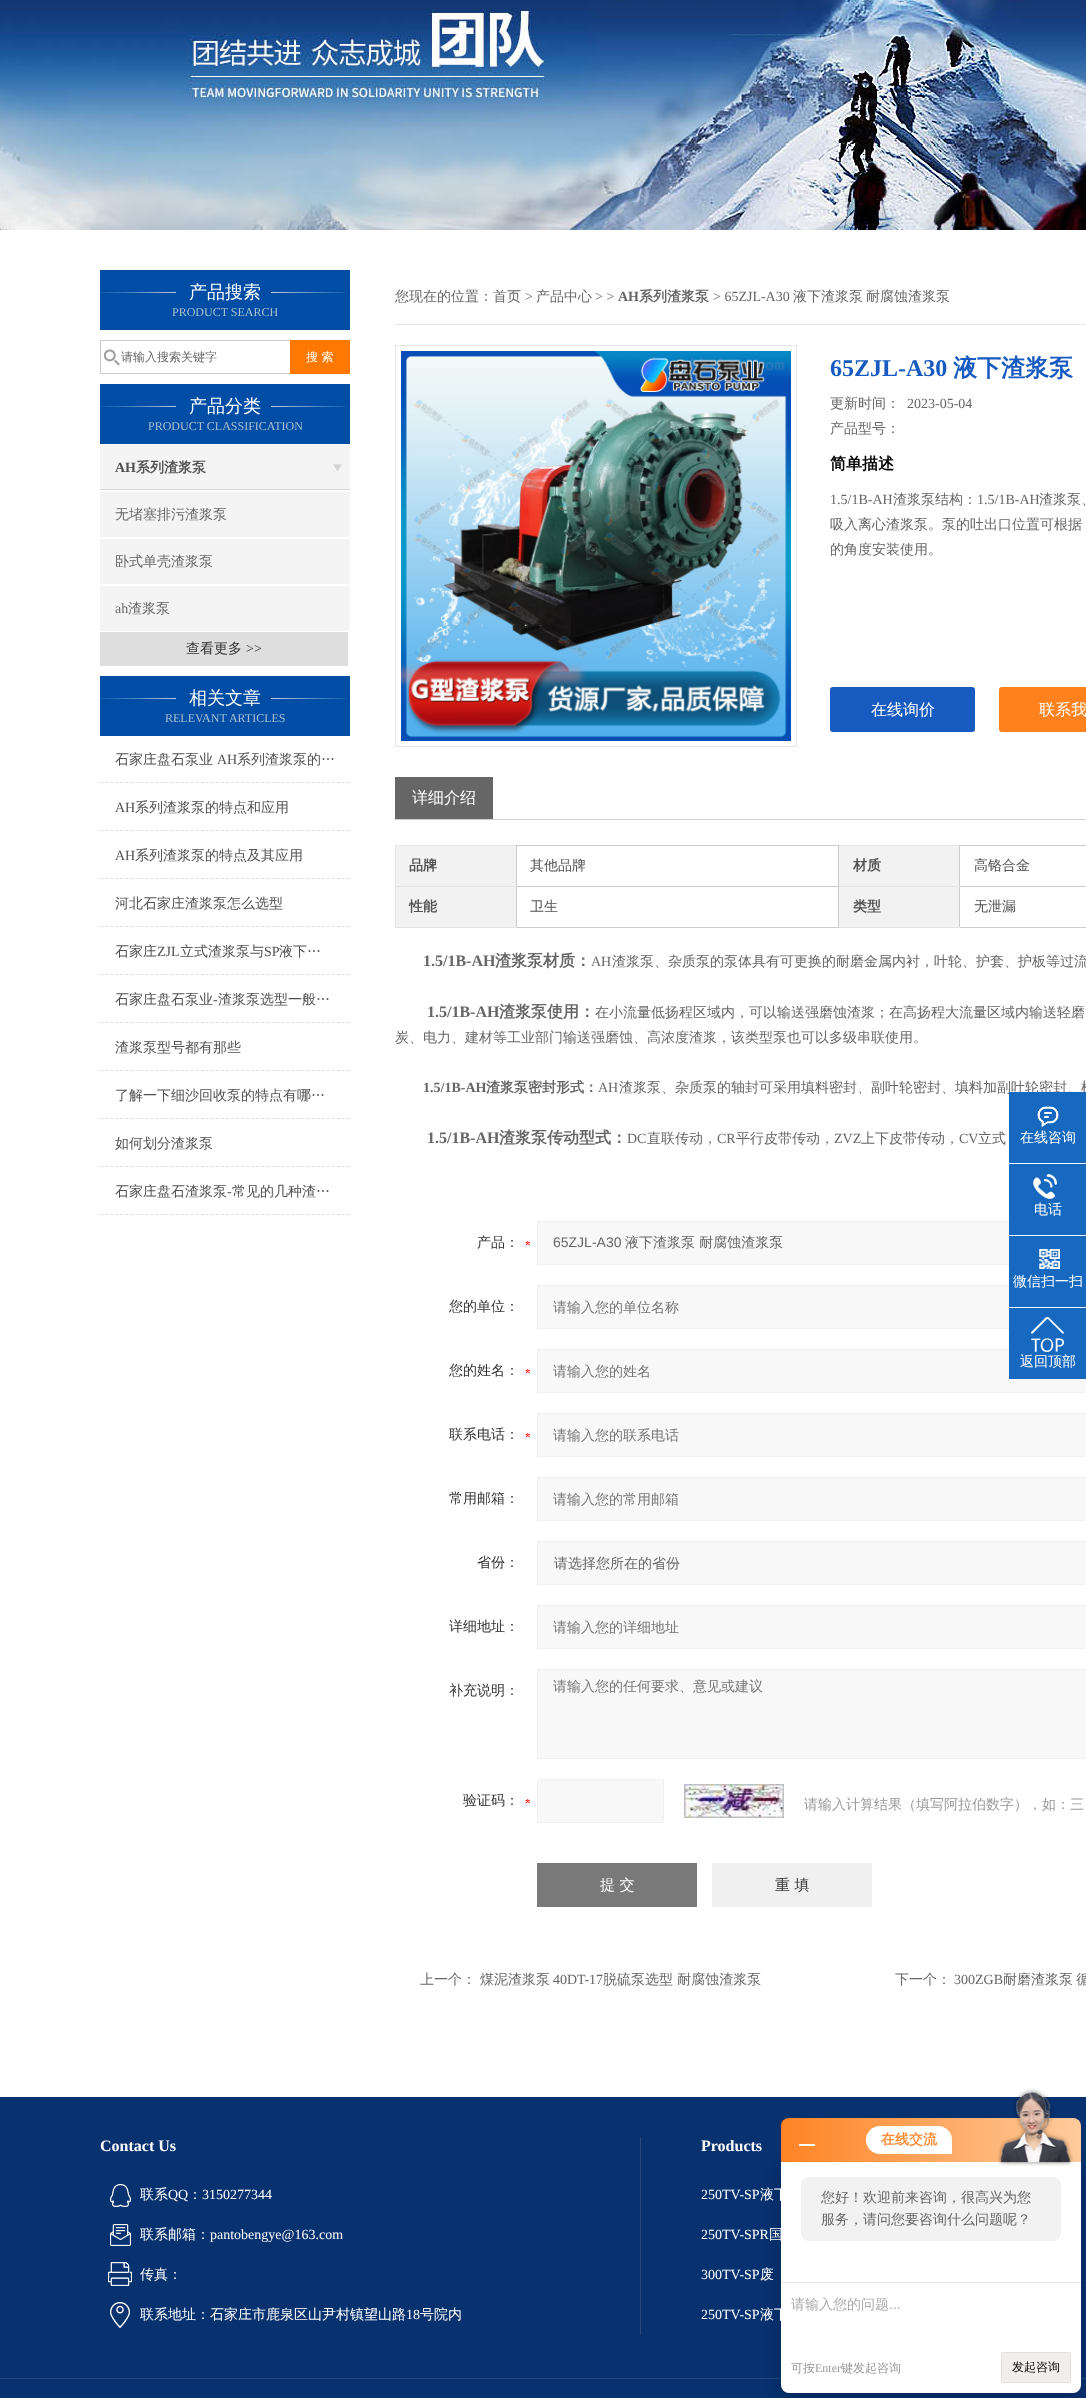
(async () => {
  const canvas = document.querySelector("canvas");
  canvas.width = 1086;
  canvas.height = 2398;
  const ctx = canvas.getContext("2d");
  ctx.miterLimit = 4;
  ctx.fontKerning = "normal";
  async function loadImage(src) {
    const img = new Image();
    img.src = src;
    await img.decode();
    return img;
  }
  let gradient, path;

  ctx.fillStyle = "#ffffff";
  ctx.fillRect(0, 0, 1086, 2398);
  ctx.drawImage(await loadImage("img/1.png"), 0, 0, 1086, 230);
  ctx.drawImage(await loadImage("img/2.png"), 100, 270, 250, 60);
  ctx.drawImage(await loadImage("img/3.png"), 104, 347, 16, 20);
  for (const [x, y, w, h, color] of [
    [100, 340, 190, 1, "#cccccc"],
    [100, 373, 190, 1, "#cccccc"],
    [100, 340, 1, 34, "#cccccc"],
    [290, 340, 60, 34, "#ff7800"],
  ]) {
    ctx.fillStyle = color;
    ctx.fillRect(x, y, w, h);
  }
  ctx.drawImage(await loadImage("img/2.png"), 100, 384, 250, 60);
  ctx.drawImage(await loadImage("img/4.png"), 100, 445, 250, 45);
  for (const [x, y, w, h, color] of [
    [100, 492, 250, 45, "#f4f4f4"],
    [100, 539, 250, 45, "#f4f4f4"],
    [100, 586, 250, 45, "#f4f4f4"],
    [100, 632, 248, 34, "#dedede"],
  ]) {
    ctx.fillStyle = color;
    ctx.fillRect(x, y, w, h);
  }
  ctx.drawImage(await loadImage("img/2.png"), 100, 676, 250, 60);
  path = new Path2D("M100 782.5H350");
  ctx.strokeStyle = "#dedede";
  ctx.setLineDash([3, 2.04]);
  ctx.stroke(path);
  path = new Path2D("M100 830.5H350");
  ctx.stroke(path);
  path = new Path2D("M100 878.5H350");
  ctx.stroke(path);
  path = new Path2D("M100 926.5H350");
  ctx.stroke(path);
  path = new Path2D("M100 974.5H350");
  ctx.stroke(path);
  path = new Path2D("M100 1022.5H350");
  ctx.stroke(path);
  path = new Path2D("M100 1070.5H350");
  ctx.stroke(path);
  path = new Path2D("M100 1118.5H350");
  ctx.stroke(path);
  path = new Path2D("M100 1166.5H350");
  ctx.stroke(path);
  path = new Path2D("M100 1214.5H350");
  ctx.stroke(path);
  ctx.fillStyle = "#e6e6e6";
  ctx.fillRect(395, 324, 691, 1);
  ctx.strokeStyle = "#e6e6e6";
  ctx.setLineDash([]);
  ctx.strokeRect(395.5, 345.5, 401, 401);
  ctx.drawImage(await loadImage("img/5.png"), 401, 351, 390, 390);
  ctx.fillStyle = "#175bc0";
  ctx.beginPath();
  ctx.roundRect(830, 687, 145, 45, 3);
  ctx.fill();
  ctx.fillStyle = "#ff811c";
  ctx.beginPath();
  ctx.roundRect(999, 687, 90, 45, 3);
  ctx.fill();
  for (const [x, y, w, h, color] of [
    [395, 819, 691, 1, "#d0d0d0"],
    [395, 777, 98, 42, "#666666"],
    [395, 845, 564, 1, "#e6e5e5"],
    [395, 845, 1, 83, "#e6e5e5"],
    [396, 846, 120, 40, "#f2f2f2"],
    [516, 845, 323, 1, "#cccccc"],
    [516, 886, 323, 1, "#cccccc"],
    [959, 927, 127, 1, "#cccccc"],
    [959, 886, 127, 1, "#cccccc"],
    [959, 886, 1, 42, "#cccccc"],
    [838, 927, 122, 1, "#e6e5e5"],
    [838, 886, 1, 42, "#cccccc"],
    [516, 927, 323, 1, "#cccccc"],
    [516, 886, 1, 42, "#cccccc"],
    [516, 845, 1, 42, "#cccccc"],
    [395, 886, 122, 1, "#e6e5e5"],
    [959, 845, 127, 1, "#cccccc"],
    [959, 845, 1, 42, "#cccccc"],
    [838, 886, 122, 1, "#e6e5e5"],
    [838, 845, 1, 42, "#cccccc"],
    [839, 846, 120, 40, "#f2f2f2"],
    [396, 887, 120, 40, "#f2f2f2"],
    [395, 927, 122, 1, "#e6e5e5"],
    [839, 887, 120, 40, "#f2f2f2"],
  ]) {
    ctx.fillStyle = color;
    ctx.fillRect(x, y, w, h);
  }
  ctx.drawImage(await loadImage("img/6.png"), 525, 1241, 5, 4);
  ctx.fillStyle = "#f8f8f8";
  ctx.beginPath();
  ctx.rect(537.5, 1221.5, 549, 43);
  ctx.fill();
  ctx.strokeStyle = "#f1f1f1";
  ctx.stroke();
  ctx.beginPath();
  ctx.rect(537.5, 1285.5, 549, 43);
  ctx.fill();
  ctx.stroke();
  ctx.drawImage(await loadImage("img/6.png"), 525, 1369, 5, 4);
  ctx.beginPath();
  ctx.rect(537.5, 1349.5, 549, 43);
  ctx.fill();
  ctx.stroke();
  ctx.drawImage(await loadImage("img/6.png"), 525, 1433, 5, 4);
  ctx.beginPath();
  ctx.rect(537.5, 1413.5, 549, 43);
  ctx.fill();
  ctx.stroke();
  ctx.beginPath();
  ctx.rect(537.5, 1477.5, 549, 43);
  ctx.fill();
  ctx.stroke();
  ctx.beginPath();
  ctx.rect(537.5, 1541.5, 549, 43);
  ctx.fill();
  ctx.stroke();
  ctx.beginPath();
  ctx.rect(537.5, 1605.5, 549, 43);
  ctx.fill();
  ctx.stroke();
  ctx.beginPath();
  ctx.rect(537.5, 1669.5, 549, 89);
  ctx.fill();
  ctx.stroke();
  ctx.drawImage(await loadImage("img/6.png"), 525, 1799, 5, 4);
  ctx.beginPath();
  ctx.rect(537.5, 1779.5, 126, 43);
  ctx.fill();
  ctx.stroke();
  ctx.drawImage(await loadImage("img/7.png"), 684, 1784, 100, 34);
  for (const [x, y, w, h, color] of [
    [537, 1863, 160, 44, "#797979"],
    [712, 1863, 160, 44, "#f0f0f0"],
    [1009, 1164, 77, 71, "#1769c0"],
  ]) {
    ctx.fillStyle = color;
    ctx.fillRect(x, y, w, h);
  }
  ctx.drawImage(await loadImage("img/9.png"), 1033, 1173, 24, 26);
  ctx.fillRect(1009, 1236, 77, 71);
  ctx.drawImage(await loadImage("img/10.png"), 1039, 1249, 21, 20);
  ctx.fillRect(1009, 1308, 77, 71);
  ctx.drawImage(await loadImage("img/11.png"), 1031, 1317, 33, 35);
  ctx.fillStyle = "#07316f";
  ctx.fillRect(0, 2097, 1086, 301);
  ctx.fillStyle = "#27497b";
  ctx.fillRect(640, 2137, 1, 198);
  ctx.drawImage(await loadImage("img/12.png"), 110, 2184, 21, 23);
  ctx.drawImage(await loadImage("img/13.png"), 110, 2224, 21, 22);
  ctx.drawImage(await loadImage("img/14.png"), 108, 2262, 24, 24);
  ctx.drawImage(await loadImage("img/15.png"), 110, 2302, 20, 26);
  ctx.fillRect(0, 2378, 1086, 1);
  ctx.fillStyle = "rgba(0, 0, 0, 0.2)";
  ctx.filter = "blur(8px)";
  ctx.beginPath();
  ctx.roundRect(781, 2166, 300, 231, 8);
  ctx.fill();
  ctx.filter = "none";
  gradient = ctx.createLinearGradient(781, 2140, 1081, 2140);
  gradient.addColorStop(0, "#ff8324");
  gradient.addColorStop(1, "#fecb9c");
  ctx.fillStyle = gradient;
  ctx.beginPath();
  ctx.roundRect(781, 2118, 300, 44, [8, 8, 0, 0]);
  ctx.fill();
  ctx.fillStyle = "#ffffff";
  ctx.fillRect(799, 2144, 16, 2);
  ctx.beginPath();
  ctx.roundRect(866, 2126, 86, 28, [14, 14, 0, 14]);
  ctx.fill();
  ctx.beginPath();
  ctx.roundRect(781, 2162, 300, 231, [0, 0, 8, 8]);
  ctx.fill();
  ctx.drawImage(await loadImage("img/16.png"), 997, 2088, 76, 78);
  ctx.fillStyle = "#f2f2f2";
  ctx.beginPath();
  ctx.roundRect(801, 2177, 260, 64, 8);
  ctx.fill();
  ctx.fillStyle = "#eaeaea";
  ctx.fillRect(781, 2282, 300, 1);
  ctx.fillStyle = "#f0efed";
  ctx.beginPath();
  ctx.roundRect(1001.5, 2352.5, 69, 30, 1.5);
  ctx.fill();
  ctx.strokeStyle = "#e2e2e2";
  ctx.stroke();
  ctx.font = "500 18px WenQuanYi Zen Hei";
  ctx.fillStyle = "#ffffff";
  ctx.fillText("产品搜索", 189, 298);
  ctx.font = "12px Liberation Serif";
  ctx.fillStyle = "#b0bfd0";
  ctx.fillText("PRODUCT SEARCH", 172, 316);
  ctx.font = "500 12px WenQuanYi Zen Hei";
  ctx.fillStyle = "#666666";
  ctx.fillText("请输入搜索关键字", 121, 361);
  ctx.fillStyle = "#ffffff";
  ctx.fillText("搜 索", 306, 361);
  ctx.font = "500 18px WenQuanYi Zen Hei";
  ctx.fillText("产品分类", 189, 412);
  ctx.font = "12px Liberation Serif";
  ctx.fillStyle = "#b0bfd0";
  ctx.fillText("PRODUCT CLASSIFICATION", 148, 430);
  ctx.font = "bold 14px Liberation Serif";
  ctx.fillStyle = "#515151";
  ctx.fillText("AH", 115, 472);
  ctx.font = "bold 14px WenQuanYi Zen Hei";
  ctx.fillText("系列渣浆泵", 136, 472);
  ctx.font = "500 14px WenQuanYi Zen Hei";
  ctx.fillStyle = "#666666";
  ctx.fillText("无堵塞排污渣浆泵", 115, 519);
  ctx.fillText("卧式单壳渣浆泵", 115, 566);
  ctx.font = "14px Liberation Serif";
  ctx.fillText("ah", 115, 613);
  ctx.font = "500 14px WenQuanYi Zen Hei";
  ctx.fillText("渣浆泵", 128, 613);
  ctx.fillStyle = "#333333";
  ctx.fillText("查看更多", 186, 653);
  ctx.font = "14px Liberation Serif";
  ctx.fillText(">>", 246, 653);
  ctx.font = "500 18px WenQuanYi Zen Hei";
  ctx.fillStyle = "#ffffff";
  ctx.fillText("相关文章", 189, 704);
  ctx.font = "12px Liberation Serif";
  ctx.fillStyle = "#b0bfd0";
  ctx.fillText("RELEVANT ARTICLES", 165, 722);
  ctx.font = "500 14px WenQuanYi Zen Hei";
  ctx.fillStyle = "#515151";
  ctx.fillText("石家庄盘石泵业", 115, 764);
  ctx.font = "14px Liberation Serif";
  ctx.fillText("AH", 217, 764);
  ctx.font = "500 14px WenQuanYi Zen Hei";
  ctx.fillText("系列渣浆泵的…", 237, 764);
  ctx.font = "14px Liberation Serif";
  ctx.fillText("AH", 115, 812);
  ctx.font = "500 14px WenQuanYi Zen Hei";
  ctx.fillText("系列渣浆泵的特点和应用", 135, 812);
  ctx.font = "14px Liberation Serif";
  ctx.fillText("AH", 115, 860);
  ctx.font = "500 14px WenQuanYi Zen Hei";
  for (const [text, x, y] of [
    ["系列渣浆泵的特点及其应用", 135, 860],
    ["河北石家庄渣浆泵怎么选型", 115, 908],
    ["石家庄", 115, 956],
  ]) {
    ctx.fillText(text, x, y);
  }
  ctx.font = "14px Liberation Serif";
  ctx.fillText("ZJL", 157, 956);
  ctx.font = "500 14px WenQuanYi Zen Hei";
  ctx.fillText("立式渣浆泵与", 180, 956);
  ctx.font = "14px Liberation Serif";
  ctx.fillText("SP", 264, 956);
  ctx.font = "500 14px WenQuanYi Zen Hei";
  ctx.fillText("液下…", 279, 956);
  ctx.fillText("石家庄盘石泵业", 115, 1004);
  ctx.font = "14px Liberation Serif";
  ctx.fillText("-", 213, 1004);
  ctx.font = "500 14px WenQuanYi Zen Hei";
  for (const [text, x, y] of [
    ["渣浆泵选型一般…", 218, 1004],
    ["渣浆泵型号都有那些", 115, 1052],
    ["了解一下细沙回收泵的特点有哪…", 115, 1100],
    ["如何划分渣浆泵", 115, 1148],
    ["石家庄盘石渣浆泵", 115, 1196],
  ]) {
    ctx.fillText(text, x, y);
  }
  ctx.font = "14px Liberation Serif";
  ctx.fillText("-", 227, 1196);
  ctx.font = "500 14px WenQuanYi Zen Hei";
  ctx.fillText("常见的几种渣…", 232, 1196);
  ctx.fillStyle = "#666666";
  ctx.fillText("您现在的位置：首页", 395, 301);
  ctx.font = "14px Liberation Serif";
  ctx.fillText(">", 525, 301);
  ctx.font = "500 14px WenQuanYi Zen Hei";
  ctx.fillText("产品中心", 536, 301);
  ctx.font = "14px Liberation Serif";
  ctx.fillText("> >", 595, 301);
  ctx.font = "bold 14px Liberation Serif";
  ctx.fillText("AH", 618, 301);
  ctx.font = "bold 14px WenQuanYi Zen Hei";
  ctx.fillText("系列渣浆泵", 639, 301);
  ctx.font = "14px Liberation Serif";
  ctx.fillText("> 65ZJL-A30", 713, 301);
  ctx.font = "500 14px WenQuanYi Zen Hei";
  ctx.fillText("液下渣浆泵", 793, 301);
  ctx.fillText("耐腐蚀渣浆泵", 866, 301);
  ctx.font = "bold 24px Liberation Serif";
  ctx.fillStyle = "#175bc0";
  ctx.fillText("65ZJL-A30", 830, 376);
  ctx.wordSpacing = "-1px";
  ctx.font = "bold 24px WenQuanYi Zen Hei";
  ctx.fillText("液下渣浆泵", 953, 376);
  ctx.wordSpacing = "0px";
  ctx.font = "500 14px WenQuanYi Zen Hei";
  ctx.fillStyle = "#666666";
  ctx.fillText("更新时间：", 830, 408);
  ctx.font = "14px Liberation Serif";
  ctx.fillText("2023-05-04", 907, 408);
  ctx.font = "500 14px WenQuanYi Zen Hei";
  ctx.fillText("产品型号：", 830, 433);
  ctx.font = "bold 16px WenQuanYi Zen Hei";
  ctx.fillStyle = "#000000";
  ctx.fillText("简单描述", 830, 469);
  ctx.font = "14px Liberation Serif";
  ctx.fillStyle = "#666666";
  ctx.fillText("1.5/1B-AH", 830, 504);
  ctx.font = "500 14px WenQuanYi Zen Hei";
  ctx.fillText("渣浆泵结构：", 893, 504);
  ctx.font = "14px Liberation Serif";
  ctx.fillText("1.5/1B-AH", 977, 504);
  ctx.font = "500 14px WenQuanYi Zen Hei";
  for (const [text, x, y] of [
    ["渣浆泵、", 1039, 504],
    ["吸入离心渣浆泵。泵的吐出口位置可根据", 830, 529],
    ["的角度安装使用。", 830, 554],
  ]) {
    ctx.fillText(text, x, y);
  }
  ctx.font = "500 16px WenQuanYi Zen Hei";
  ctx.fillStyle = "#ffffff";
  for (const [text, x, y] of [
    ["在线询价", 871, 715],
    ["联系我", 1039, 715],
    ["详细介绍", 412, 803],
  ]) {
    ctx.fillText(text, x, y);
  }
  ctx.font = "bold 14px WenQuanYi Zen Hei";
  ctx.fillStyle = "#515151";
  ctx.fillText("品牌", 409, 870);
  ctx.font = "500 14px WenQuanYi Zen Hei";
  ctx.fillText("其他品牌", 530, 870);
  ctx.font = "bold 14px WenQuanYi Zen Hei";
  ctx.fillText("材质", 853, 870);
  ctx.font = "500 14px WenQuanYi Zen Hei";
  ctx.fillText("高铬合金", 974, 870);
  ctx.font = "bold 14px WenQuanYi Zen Hei";
  ctx.fillText("性能", 409, 911);
  ctx.font = "500 14px WenQuanYi Zen Hei";
  ctx.fillText("卫生", 530, 911);
  ctx.font = "bold 14px WenQuanYi Zen Hei";
  ctx.fillText("类型", 853, 911);
  ctx.font = "500 14px WenQuanYi Zen Hei";
  ctx.fillText("无泄漏", 974, 911);
  ctx.font = "bold 16px Liberation Serif";
  ctx.fillStyle = "#666666";
  ctx.fillText("1.5/1B-AH", 423, 966);
  ctx.font = "bold 16px WenQuanYi Zen Hei";
  ctx.fillText("渣浆泵材质：", 495, 966);
  ctx.font = "14px Liberation Serif";
  ctx.fillText("AH", 591, 966);
  ctx.font = "500 14px WenQuanYi Zen Hei";
  ctx.fillText("渣浆泵、杂质泵的泵体具有可更换的耐磨金属内衬，叶轮、护套、护板等过流", 612, 966);
  ctx.font = "bold 16px Liberation Serif";
  ctx.fillText("1.5/1B-AH", 427, 1017);
  ctx.font = "bold 16px WenQuanYi Zen Hei";
  ctx.fillText("渣浆泵使用：", 499, 1017);
  ctx.font = "500 14px WenQuanYi Zen Hei";
  ctx.fillText("在小流量低扬程区域内，可以输送强磨蚀渣浆；在高扬程大流量区域内输送轻磨", 595, 1017);
  ctx.fillText("炭、电力、建材等工业部门输送强磨蚀、高浓度渣浆，该类型泵也可以多级串联使用。", 395, 1042);
  ctx.font = "bold 14px Liberation Serif";
  ctx.fillText("1.5/1B-AH", 423, 1092);
  ctx.font = "bold 14px WenQuanYi Zen Hei";
  ctx.fillText("渣浆泵密封形式：", 486, 1092);
  ctx.font = "14px Liberation Serif";
  ctx.fillText("AH", 598, 1092);
  ctx.font = "500 14px WenQuanYi Zen Hei";
  ctx.fillText("渣浆泵、杂质泵的轴封可采用填料密封、副叶轮密封、填料加副叶轮密封、机", 619, 1092);
  ctx.font = "bold 16px Liberation Serif";
  ctx.fillText("1.5/1B-AH", 427, 1143);
  ctx.font = "bold 16px WenQuanYi Zen Hei";
  ctx.fillText("渣浆泵传动型式：", 499, 1143);
  ctx.font = "14px Liberation Serif";
  ctx.fillText("DC", 627, 1143);
  ctx.font = "500 14px WenQuanYi Zen Hei";
  ctx.fillText("直联传动，", 647, 1143);
  ctx.font = "14px Liberation Serif";
  ctx.fillText("CR", 717, 1143);
  ctx.font = "500 14px WenQuanYi Zen Hei";
  ctx.fillText("平行皮带传动，", 736, 1143);
  ctx.font = "14px Liberation Serif";
  ctx.fillText("ZVZ", 834, 1143);
  ctx.font = "500 14px WenQuanYi Zen Hei";
  ctx.fillText("上下皮带传动，", 861, 1143);
  ctx.font = "14px Liberation Serif";
  ctx.fillText("CV", 959, 1143);
  ctx.font = "500 14px WenQuanYi Zen Hei";
  ctx.fillText("立式", 978, 1143);
  ctx.fillStyle = "#333333";
  ctx.fillText("产品：", 477, 1247);
  ctx.font = "14px Liberation Sans";
  ctx.fillStyle = "#666666";
  ctx.fillText("65ZJL-A30", 553, 1247);
  ctx.font = "500 14px WenQuanYi Zen Hei";
  ctx.fillText("液下渣浆泵 耐腐蚀渣浆泵", 625, 1247);
  ctx.fillStyle = "#333333";
  ctx.fillText("您的单位：", 449, 1311);
  ctx.fillStyle = "#757575";
  ctx.fillText("请输入您的单位名称", 553, 1312);
  ctx.fillStyle = "#333333";
  ctx.fillText("您的姓名：", 449, 1375);
  ctx.fillStyle = "#757575";
  ctx.fillText("请输入您的姓名", 553, 1376);
  ctx.fillStyle = "#333333";
  ctx.fillText("联系电话：", 449, 1439);
  ctx.fillStyle = "#757575";
  ctx.fillText("请输入您的联系电话", 553, 1440);
  ctx.fillStyle = "#333333";
  ctx.fillText("常用邮箱：", 449, 1503);
  ctx.fillStyle = "#757575";
  ctx.fillText("请输入您的常用邮箱", 553, 1504);
  ctx.fillStyle = "#333333";
  ctx.fillText("省份：", 477, 1567);
  ctx.fillStyle = "#666666";
  ctx.fillText("请选择您所在的省份", 554, 1568);
  ctx.fillStyle = "#333333";
  ctx.fillText("详细地址：", 449, 1631);
  ctx.fillStyle = "#757575";
  ctx.fillText("请输入您的详细地址", 553, 1632);
  ctx.fillStyle = "#333333";
  ctx.fillText("补充说明：", 449, 1695);
  ctx.fillStyle = "#757575";
  ctx.fillText("请输入您的任何要求、意见或建议", 553, 1691);
  ctx.fillStyle = "#333333";
  ctx.fillText("验证码：", 463, 1805);
  ctx.fillStyle = "#999999";
  ctx.fillText("请输入计算结果（填写阿拉伯数字），如：三", 804, 1809);
  ctx.font = "500 15px WenQuanYi Zen Hei";
  ctx.fillStyle = "#ffffff";
  ctx.fillText("提 交", 600, 1890);
  ctx.fillStyle = "#333333";
  ctx.fillText("重 填", 775, 1890);
  ctx.font = "500 14px WenQuanYi Zen Hei";
  ctx.fillStyle = "#666666";
  ctx.fillText("上一个：", 420, 1984);
  ctx.fillText("煤泥渣浆泵", 480, 1984);
  ctx.font = "14px Liberation Serif";
  ctx.fillText("40DT-17", 553, 1984);
  ctx.font = "500 14px WenQuanYi Zen Hei";
  ctx.fillText("脱硫泵选型 耐腐蚀渣浆泵", 603, 1984);
  ctx.fillText("下一个：", 895, 1984);
  ctx.font = "14px Liberation Serif";
  ctx.fillText("300ZGB", 954, 1984);
  ctx.wordSpacing = "-1px";
  ctx.font = "500 14px WenQuanYi Zen Hei";
  ctx.fillText("耐磨渣浆泵 循", 1003, 1984);
  ctx.fillStyle = "#1769c0";
  ctx.fillRect(1009, 1092, 77, 71);
  ctx.drawImage(await loadImage("img/8.png"), 1037, 1106, 22, 22);
  ctx.wordSpacing = "0px";
  ctx.fillStyle = "#ffffff";
  for (const [text, x, y] of [
    ["在线咨询", 1020, 1142],
    ["电话", 1034, 1214],
    ["微信扫一扫", 1013, 1286],
    ["返回顶部", 1020, 1366],
  ]) {
    ctx.fillText(text, x, y);
  }
  ctx.font = "bold 16px Liberation Serif";
  ctx.fillText("Contact Us", 100, 2151);
  ctx.font = "500 14px WenQuanYi Zen Hei";
  ctx.fillText("联系", 140, 2199);
  ctx.font = "14px Liberation Serif";
  ctx.fillText("QQ", 168, 2199);
  ctx.font = "500 14px WenQuanYi Zen Hei";
  ctx.fillText("：", 188, 2199);
  ctx.font = "14px Liberation Serif";
  ctx.fillText("3150277344", 202, 2199);
  ctx.font = "500 14px WenQuanYi Zen Hei";
  ctx.fillText("联系邮箱：", 140, 2239);
  ctx.font = "14px Liberation Serif";
  ctx.fillText("pantobengye@163.com", 210, 2239);
  ctx.font = "500 14px WenQuanYi Zen Hei";
  ctx.fillText("传真：", 140, 2279);
  ctx.fillText("联系地址：石家庄市鹿泉区山尹村镇望山路", 140, 2319);
  ctx.font = "14px Liberation Serif";
  ctx.fillText("18", 406, 2319);
  ctx.font = "500 14px WenQuanYi Zen Hei";
  ctx.fillText("号院内", 420, 2319);
  ctx.font = "bold 16px Liberation Serif";
  ctx.fillText("Products", 701, 2151);
  ctx.font = "14px Liberation Serif";
  ctx.fillText("250TV-SP", 701, 2199);
  ctx.font = "500 14px WenQuanYi Zen Hei";
  ctx.fillText("液下", 760, 2199);
  ctx.font = "14px Liberation Serif";
  ctx.fillText("250TV-SPR", 701, 2239);
  ctx.font = "500 14px WenQuanYi Zen Hei";
  ctx.fillText("国", 769, 2239);
  ctx.font = "14px Liberation Serif";
  ctx.fillText("300TV-SP", 701, 2279);
  ctx.font = "500 14px WenQuanYi Zen Hei";
  ctx.fillText("废", 760, 2279);
  ctx.font = "14px Liberation Serif";
  ctx.fillText("250TV-SP", 701, 2319);
  ctx.font = "500 14px WenQuanYi Zen Hei";
  ctx.fillText("液下", 760, 2319);
  ctx.font = "bold 14px WenQuanYi Zen Hei";
  ctx.fillStyle = "#fb8b36";
  ctx.fillText("在线交流", 881, 2144);
  ctx.font = "500 14px WenQuanYi Zen Hei";
  ctx.fillStyle = "#666666";
  ctx.fillText("您好！欢迎前来咨询，很高兴为您", 821, 2202);
  ctx.fillText("服务，请问您要咨询什么问题呢？", 821, 2224);
  ctx.fillStyle = "#aaaaaa";
  ctx.fillText("请输入您的问题", 791, 2309);
  ctx.font = "14px Liberation Sans";
  ctx.fillText("...", 889, 2309);
  ctx.font = "500 12px WenQuanYi Zen Hei";
  ctx.fillStyle = "#999999";
  ctx.fillText("可按", 791, 2372);
  ctx.font = "12px Liberation Serif";
  ctx.fillText("Enter", 815, 2372);
  ctx.font = "500 12px WenQuanYi Zen Hei";
  ctx.fillText("键发起咨询", 841, 2372);
  ctx.fillStyle = "#000000";
  ctx.fillText("发起咨询", 1012, 2371);
})();
